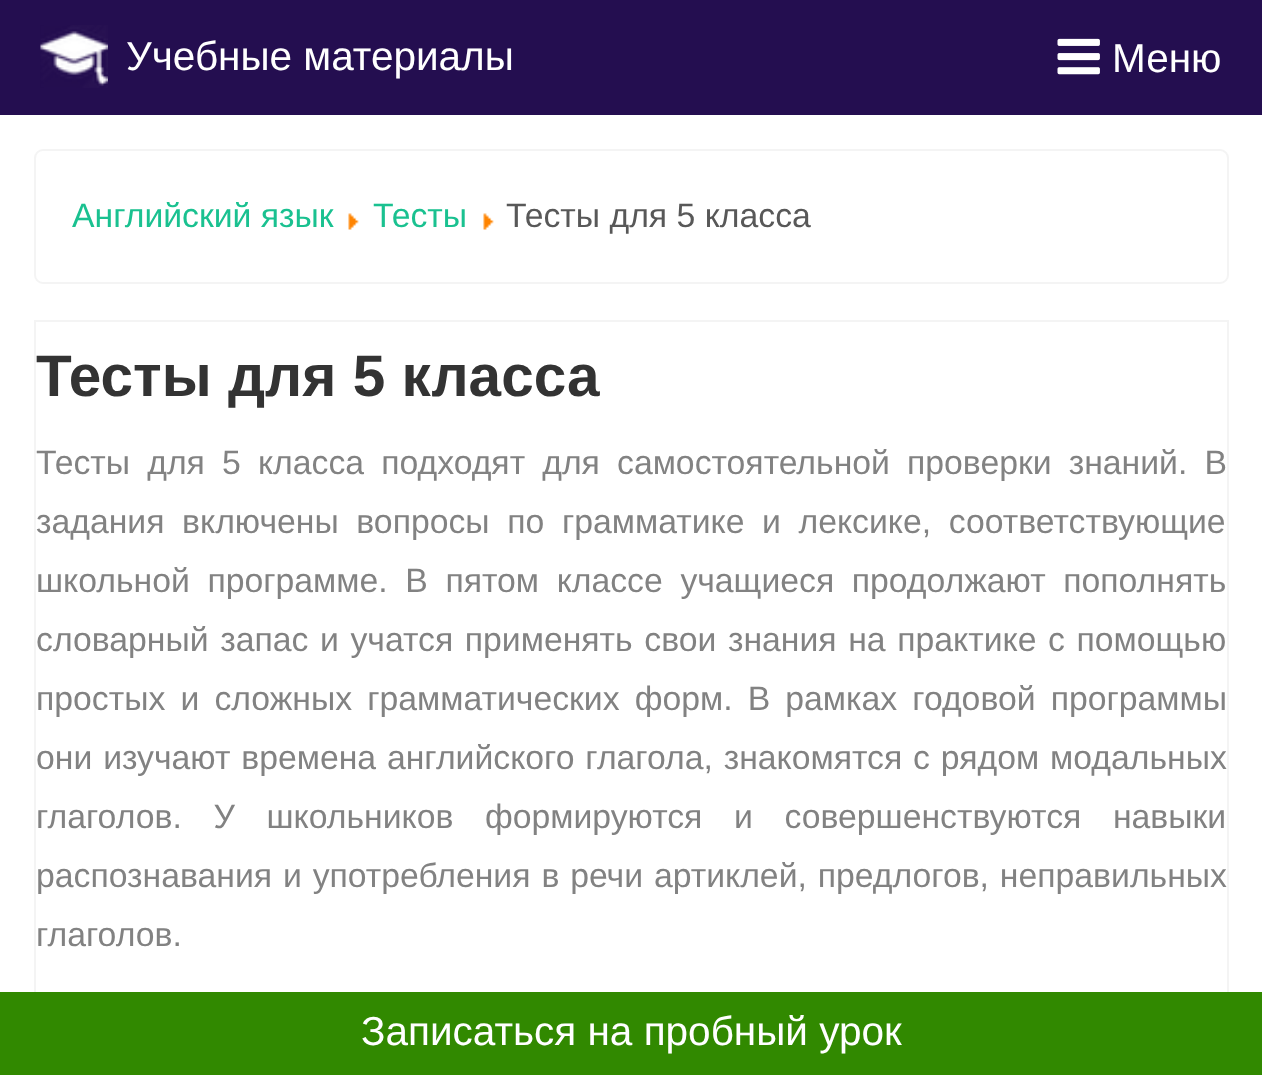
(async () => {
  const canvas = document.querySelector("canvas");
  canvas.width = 1262;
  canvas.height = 1075;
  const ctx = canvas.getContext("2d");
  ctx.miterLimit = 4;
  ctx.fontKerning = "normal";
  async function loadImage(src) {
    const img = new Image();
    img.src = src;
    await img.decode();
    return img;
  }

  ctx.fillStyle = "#ffffff";
  ctx.fillRect(0, 0, 1262, 1075);
  ctx.fillStyle = "#240e50";
  ctx.fillRect(0, 0, 1262, 115);
  ctx.drawImage(await loadImage("img/1.png"), 40, 25, 68, 63);
  ctx.drawImage(await loadImage("img/2.png"), 1057, 38, 43, 37);
  ctx.strokeStyle = "#f4f4f4";
  ctx.lineWidth = 2;
  ctx.strokeRect(35, 321, 1193, 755);
  ctx.fillStyle = "#318900";
  ctx.fillRect(0, 992, 1262, 83);
  ctx.beginPath();
  ctx.roundRect(35, 150, 1193, 133, 8);
  ctx.stroke();
  ctx.drawImage(await loadImage("img/3.png"), 348, 213, 11, 17);
  ctx.drawImage(await loadImage("img/3.png"), 483, 213, 11, 17);
  ctx.font = "40.5px Liberation Sans";
  ctx.fillStyle = "#ffffff";
  for (const [text, x, y] of [
    ["Учебные материалы", 126, 70],
    ["Меню", 1112, 72],
    ["Записаться на пробный урок", 361, 1045],
  ]) {
    ctx.fillText(text, x, y);
  }
  ctx.font = "33.75px Liberation Sans";
  ctx.fillStyle = "#1ac190";
  ctx.fillText("Английский язык", 72, 227);
  ctx.fillText("Тесты", 373, 227);
  ctx.fillStyle = "#585858";
  ctx.fillText("Тесты для 5 класса", 506, 227);
  ctx.font = "bold 58.5px Liberation Sans";
  ctx.fillStyle = "#333333";
  ctx.fillText("Тесты для 5 класса", 36, 396);
  ctx.wordSpacing = "7.75px";
  ctx.font = "33.75px Liberation Sans";
  ctx.fillStyle = "#828282";
  ctx.fillText("Тесты для 5 класса подходят для самостоятельной проверки знаний. В", 36, 474);
  ctx.wordSpacing = "8.25px";
  ctx.fillText("задания включены вопросы по грамматике и лексике, соответствующие", 36, 533);
  ctx.fillText("школьной программе. В пятом классе учащиеся продолжают пополнять", 36, 592);
  ctx.wordSpacing = "2.25px";
  ctx.fillText("словарный запас и учатся применять свои знания на практике с помощью", 36, 651);
  ctx.wordSpacing = "5.75px";
  ctx.fillText("простых и сложных грамматических форм. В рамках годовой программы", 36, 710);
  ctx.wordSpacing = "1.5px";
  ctx.fillText("они изучают времена английского глагола, знакомятся с рядом модальных", 36, 769);
  ctx.wordSpacing = "22.25px";
  ctx.fillText("глаголов. У школьников формируются и совершенствуются навыки", 36, 828);
  ctx.wordSpacing = "1.5px";
  ctx.fillText("распознавания и употребления в речи артиклей, предлогов, неправильных", 36, 887);
  ctx.wordSpacing = "0px";
  ctx.fillText("глаголов.", 36, 946);
})();
